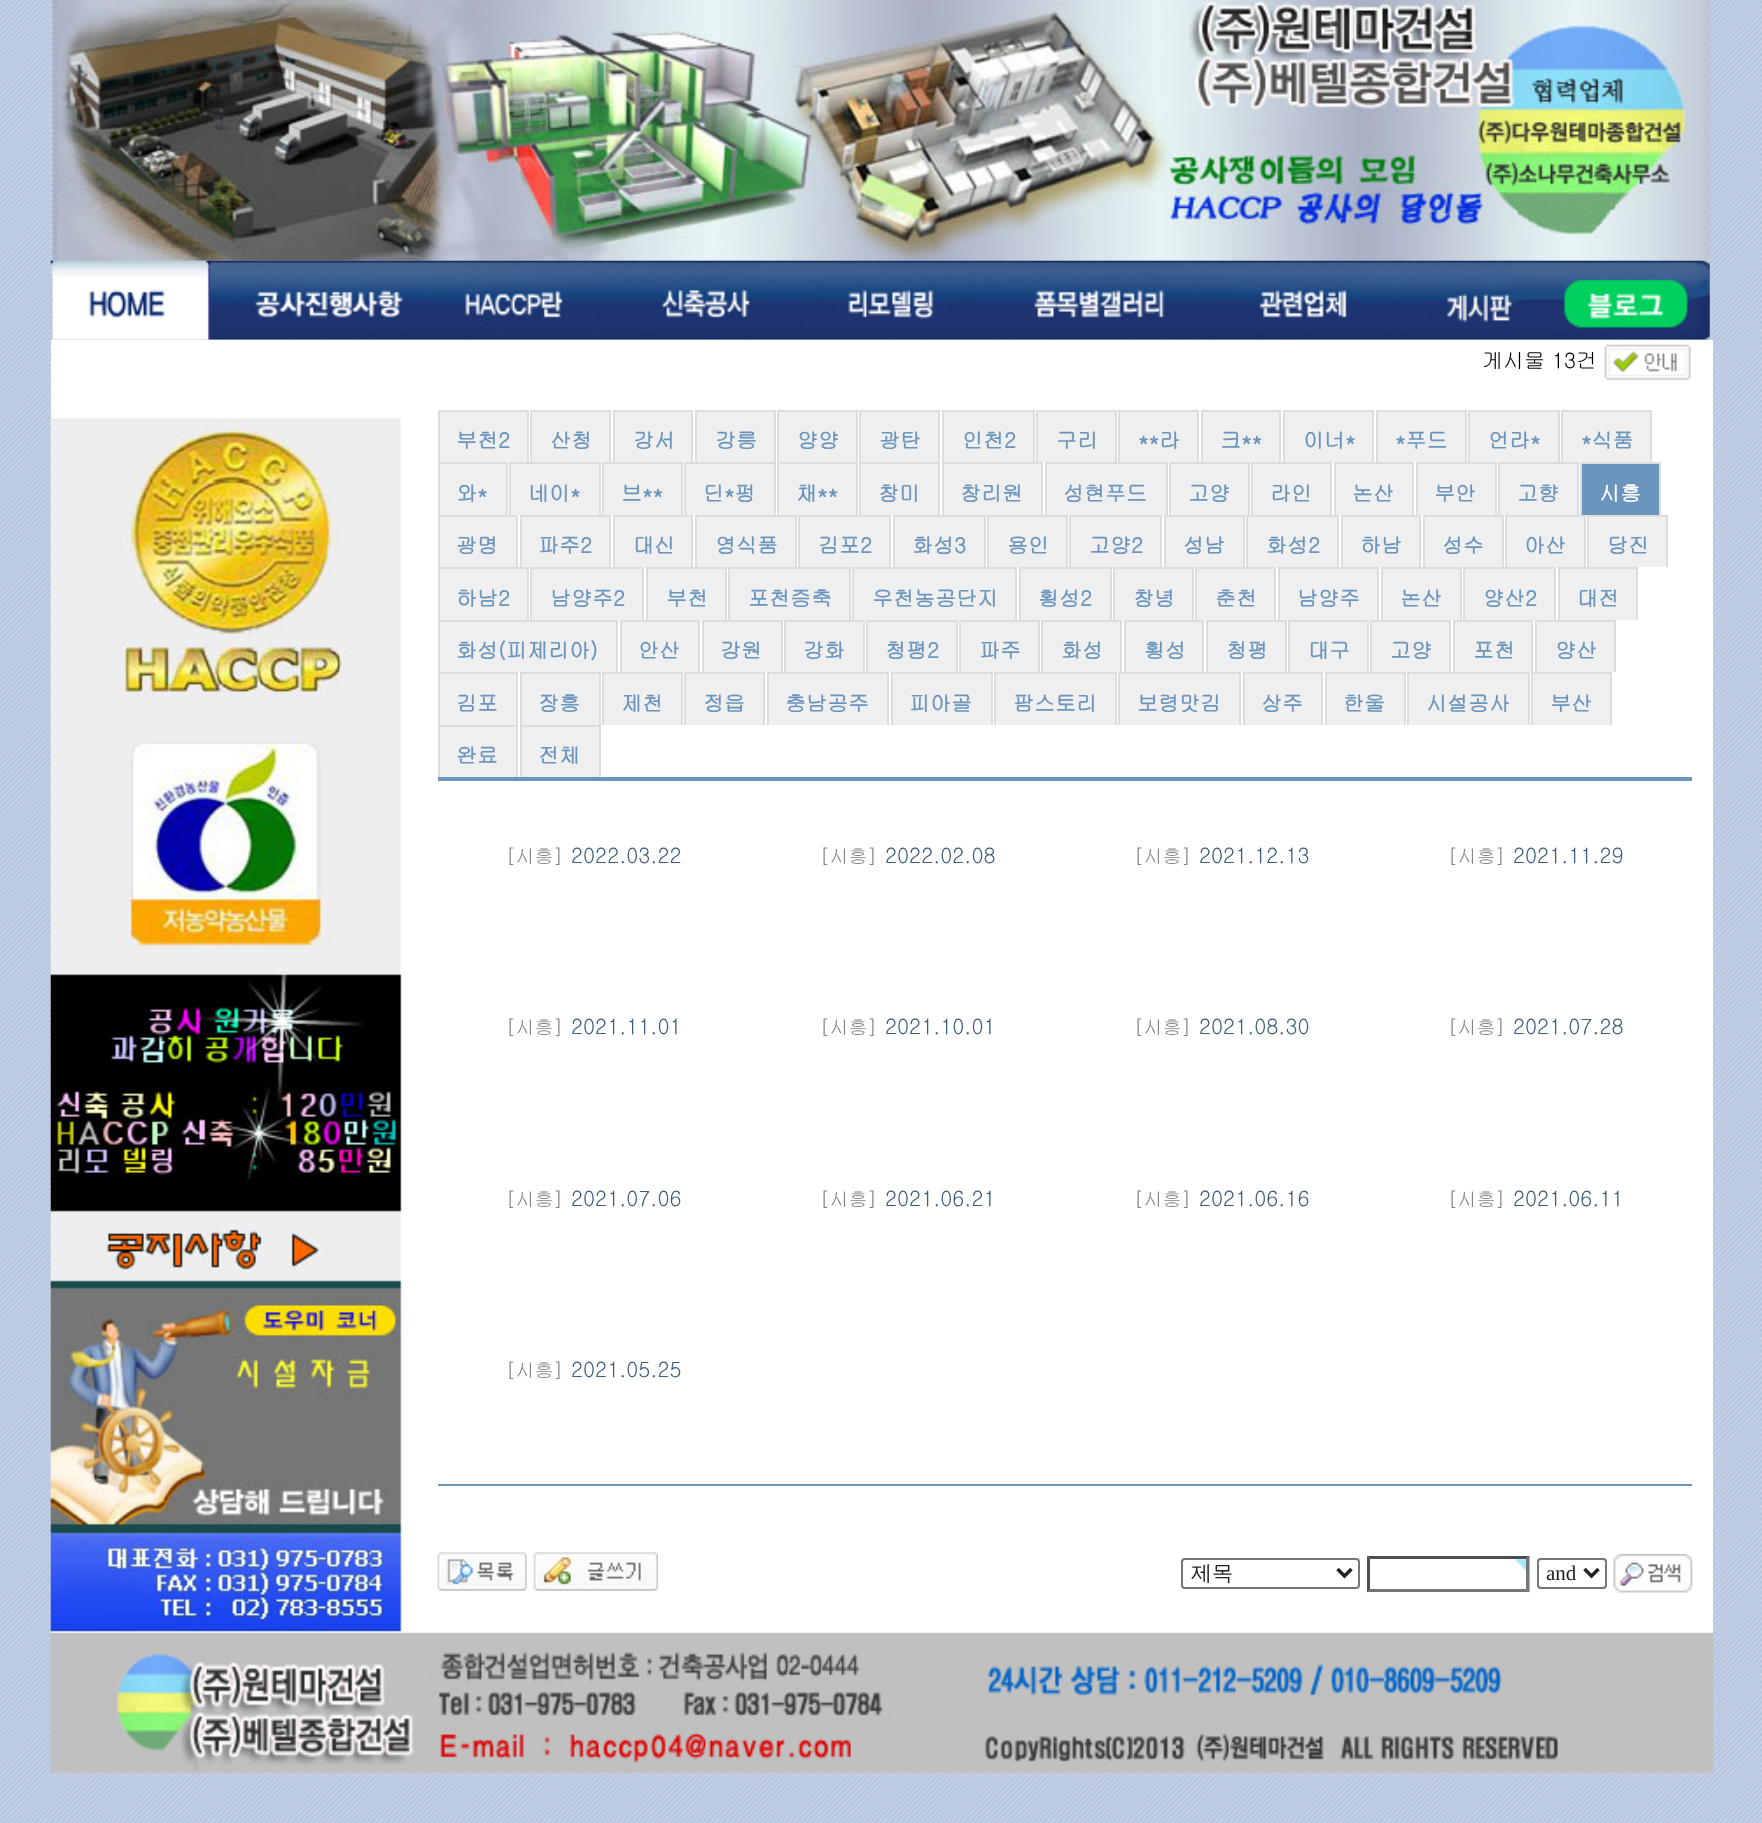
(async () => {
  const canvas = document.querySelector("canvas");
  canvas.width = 1762;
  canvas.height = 1823;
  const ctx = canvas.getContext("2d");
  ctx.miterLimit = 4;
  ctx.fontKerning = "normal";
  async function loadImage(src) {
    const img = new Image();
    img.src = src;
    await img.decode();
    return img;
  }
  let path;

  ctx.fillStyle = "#ffffff";
  ctx.fillRect(0, 0, 1762, 1823);
  ctx.drawImage(await loadImage("img/1.png"), 0, 0, 1762, 1823);
  ctx.drawImage(await loadImage("img/2.png"), 51, 0, 1659, 261);
  ctx.drawImage(await loadImage("img/3.png"), 50, 260, 1660, 80);
  ctx.fillRect(51, 340, 1662, 1293);
  ctx.drawImage(await loadImage("img/4.png"), 50, 418, 352, 1215);
  ctx.drawImage(await loadImage("img/5.png"), 1604, 344, 87, 37);
  for (const [x, y, w, h, color] of [
    [440, 412, 87, 50, "#efefef"],
    [438, 410, 91, 2, "#dddddd"],
    [527, 410, 2, 52, "#dddddd"],
    [438, 410, 2, 52, "#dddddd"],
    [532, 412, 77, 50, "#efefef"],
    [530, 410, 81, 2, "#dddddd"],
    [609, 410, 2, 52, "#dddddd"],
    [530, 410, 2, 52, "#dddddd"],
    [615, 412, 76, 50, "#efefef"],
    [613, 410, 80, 2, "#dddddd"],
    [691, 410, 2, 52, "#dddddd"],
    [613, 410, 2, 52, "#dddddd"],
    [697, 412, 77, 50, "#efefef"],
    [695, 410, 80, 2, "#dddddd"],
    [774, 410, 2, 52, "#dddddd"],
    [695, 410, 2, 52, "#dddddd"],
    [779, 412, 77, 50, "#efefef"],
    [777, 410, 81, 2, "#dddddd"],
    [856, 410, 2, 52, "#dddddd"],
    [777, 410, 2, 52, "#dddddd"],
    [861, 412, 77, 50, "#efefef"],
    [859, 410, 81, 2, "#dddddd"],
    [938, 410, 2, 52, "#dddddd"],
    [859, 410, 2, 52, "#dddddd"],
    [944, 412, 89, 50, "#efefef"],
    [942, 410, 92, 2, "#dddddd"],
    [1033, 410, 2, 52, "#dddddd"],
    [942, 410, 2, 52, "#dddddd"],
    [1038, 412, 77, 50, "#efefef"],
    [1036, 410, 81, 2, "#dddddd"],
    [1115, 410, 2, 52, "#dddddd"],
    [1036, 410, 2, 52, "#dddddd"],
    [1120, 412, 77, 50, "#efefef"],
    [1118, 410, 81, 2, "#dddddd"],
    [1197, 410, 2, 52, "#dddddd"],
    [1118, 410, 2, 52, "#dddddd"],
    [1203, 412, 76, 50, "#efefef"],
    [1201, 410, 80, 2, "#dddddd"],
    [1279, 410, 2, 52, "#dddddd"],
    [1201, 410, 2, 52, "#dddddd"],
    [1285, 412, 87, 50, "#efefef"],
    [1283, 410, 91, 2, "#dddddd"],
    [1372, 410, 2, 52, "#dddddd"],
    [1283, 410, 2, 52, "#dddddd"],
    [1378, 412, 87, 50, "#efefef"],
    [1376, 410, 91, 2, "#dddddd"],
    [1465, 410, 2, 52, "#dddddd"],
    [1376, 410, 2, 52, "#dddddd"],
    [1470, 412, 88, 50, "#efefef"],
    [1468, 410, 91, 2, "#dddddd"],
    [1558, 410, 2, 52, "#dddddd"],
    [1468, 410, 2, 52, "#dddddd"],
    [1563, 412, 87, 50, "#efefef"],
    [1561, 410, 91, 2, "#dddddd"],
    [1650, 410, 2, 52, "#dddddd"],
    [1561, 410, 2, 52, "#dddddd"],
    [440, 464, 66, 51, "#efefef"],
    [438, 462, 70, 2, "#dddddd"],
    [506, 462, 2, 53, "#dddddd"],
    [438, 462, 2, 53, "#dddddd"],
    [511, 464, 88, 51, "#efefef"],
    [509, 462, 91, 2, "#dddddd"],
    [599, 462, 2, 53, "#dddddd"],
    [509, 462, 2, 53, "#dddddd"],
    [604, 464, 77, 51, "#efefef"],
    [602, 462, 81, 2, "#dddddd"],
    [681, 462, 2, 53, "#dddddd"],
    [602, 462, 2, 53, "#dddddd"],
    [686, 464, 88, 51, "#efefef"],
    [684, 462, 91, 2, "#dddddd"],
    [774, 462, 2, 53, "#dddddd"],
    [684, 462, 2, 53, "#dddddd"],
    [779, 464, 77, 51, "#efefef"],
    [777, 462, 81, 2, "#dddddd"],
    [856, 462, 2, 53, "#dddddd"],
    [777, 462, 2, 53, "#dddddd"],
    [861, 464, 77, 51, "#efefef"],
    [859, 462, 81, 2, "#dddddd"],
    [938, 462, 2, 53, "#dddddd"],
    [859, 462, 2, 53, "#dddddd"],
    [944, 464, 97, 51, "#efefef"],
    [942, 462, 101, 2, "#dddddd"],
    [1041, 462, 2, 53, "#dddddd"],
    [942, 462, 2, 53, "#dddddd"],
    [1047, 464, 119, 51, "#efefef"],
    [1045, 462, 122, 2, "#dddddd"],
    [1166, 462, 2, 53, "#dddddd"],
    [1045, 462, 2, 53, "#dddddd"],
    [1171, 464, 77, 51, "#efefef"],
    [1169, 462, 81, 2, "#dddddd"],
    [1248, 462, 2, 53, "#dddddd"],
    [1169, 462, 2, 53, "#dddddd"],
    [1253, 464, 77, 51, "#efefef"],
    [1251, 462, 81, 2, "#dddddd"],
    [1330, 462, 2, 53, "#dddddd"],
    [1251, 462, 2, 53, "#dddddd"],
    [1336, 464, 76, 51, "#efefef"],
    [1334, 462, 80, 2, "#dddddd"],
    [1412, 462, 2, 53, "#dddddd"],
    [1334, 462, 2, 53, "#dddddd"],
    [1418, 464, 77, 51, "#efefef"],
    [1416, 462, 80, 2, "#dddddd"],
    [1495, 462, 2, 53, "#dddddd"],
    [1416, 462, 2, 53, "#dddddd"],
    [1500, 464, 77, 51, "#efefef"],
    [1498, 462, 81, 2, "#dddddd"],
    [1577, 462, 2, 53, "#dddddd"],
    [1498, 462, 2, 53, "#dddddd"],
    [1582, 464, 77, 51, "#6b95bd"],
    [1580, 462, 81, 2, "#dddddd"],
    [1659, 462, 2, 53, "#dddddd"],
    [1580, 462, 2, 53, "#dddddd"],
    [440, 517, 76, 50, "#efefef"],
    [438, 515, 80, 2, "#dddddd"],
    [516, 515, 2, 52, "#dddddd"],
    [438, 515, 2, 52, "#dddddd"],
    [522, 517, 87, 50, "#efefef"],
    [520, 515, 91, 2, "#dddddd"],
    [609, 515, 2, 52, "#dddddd"],
    [520, 515, 2, 52, "#dddddd"],
    [615, 517, 76, 50, "#efefef"],
    [613, 515, 80, 2, "#dddddd"],
    [691, 515, 2, 52, "#dddddd"],
    [613, 515, 2, 52, "#dddddd"],
    [697, 517, 98, 50, "#efefef"],
    [695, 515, 101, 2, "#dddddd"],
    [795, 515, 2, 52, "#dddddd"],
    [695, 515, 2, 52, "#dddddd"],
    [800, 517, 89, 50, "#efefef"],
    [798, 515, 93, 2, "#dddddd"],
    [889, 515, 2, 52, "#dddddd"],
    [798, 515, 2, 52, "#dddddd"],
    [895, 517, 89, 50, "#efefef"],
    [893, 515, 92, 2, "#dddddd"],
    [984, 515, 2, 52, "#dddddd"],
    [893, 515, 2, 52, "#dddddd"],
    [989, 517, 77, 50, "#efefef"],
    [987, 515, 81, 2, "#dddddd"],
    [1066, 515, 2, 52, "#dddddd"],
    [987, 515, 2, 52, "#dddddd"],
    [1071, 517, 89, 50, "#efefef"],
    [1069, 515, 93, 2, "#dddddd"],
    [1160, 515, 2, 52, "#dddddd"],
    [1069, 515, 2, 52, "#dddddd"],
    [1166, 517, 77, 50, "#efefef"],
    [1164, 515, 80, 2, "#dddddd"],
    [1243, 515, 2, 52, "#dddddd"],
    [1164, 515, 2, 52, "#dddddd"],
    [1248, 517, 89, 50, "#efefef"],
    [1246, 515, 93, 2, "#dddddd"],
    [1337, 515, 2, 52, "#dddddd"],
    [1246, 515, 2, 52, "#dddddd"],
    [1343, 517, 76, 50, "#efefef"],
    [1341, 515, 80, 2, "#dddddd"],
    [1419, 515, 2, 52, "#dddddd"],
    [1341, 515, 2, 52, "#dddddd"],
    [1425, 517, 77, 50, "#efefef"],
    [1423, 515, 80, 2, "#dddddd"],
    [1502, 515, 2, 52, "#dddddd"],
    [1423, 515, 2, 52, "#dddddd"],
    [1507, 517, 77, 50, "#efefef"],
    [1505, 515, 81, 2, "#dddddd"],
    [1584, 515, 2, 52, "#dddddd"],
    [1505, 515, 2, 52, "#dddddd"],
    [1589, 517, 77, 50, "#efefef"],
    [1587, 515, 81, 2, "#dddddd"],
    [1666, 515, 2, 52, "#dddddd"],
    [1587, 515, 2, 52, "#dddddd"],
    [440, 569, 87, 51, "#efefef"],
    [438, 567, 91, 2, "#dddddd"],
    [527, 567, 2, 53, "#dddddd"],
    [438, 567, 2, 53, "#dddddd"],
    [532, 569, 110, 51, "#efefef"],
    [530, 567, 114, 2, "#dddddd"],
    [642, 567, 2, 53, "#dddddd"],
    [530, 567, 2, 53, "#dddddd"],
    [648, 569, 77, 51, "#efefef"],
    [646, 567, 80, 2, "#dddddd"],
    [725, 567, 2, 53, "#dddddd"],
    [646, 567, 2, 53, "#dddddd"],
    [730, 569, 119, 51, "#efefef"],
    [728, 567, 123, 2, "#dddddd"],
    [849, 567, 2, 53, "#dddddd"],
    [728, 567, 2, 53, "#dddddd"],
    [854, 569, 161, 51, "#efefef"],
    [852, 567, 165, 2, "#dddddd"],
    [1015, 567, 2, 53, "#dddddd"],
    [852, 567, 2, 53, "#dddddd"],
    [1021, 569, 89, 51, "#efefef"],
    [1019, 567, 92, 2, "#dddddd"],
    [1110, 567, 2, 53, "#dddddd"],
    [1019, 567, 2, 53, "#dddddd"],
    [1115, 569, 77, 51, "#efefef"],
    [1113, 567, 81, 2, "#dddddd"],
    [1192, 567, 2, 53, "#dddddd"],
    [1113, 567, 2, 53, "#dddddd"],
    [1197, 569, 77, 51, "#efefef"],
    [1195, 567, 81, 2, "#dddddd"],
    [1274, 567, 2, 53, "#dddddd"],
    [1195, 567, 2, 53, "#dddddd"],
    [1280, 569, 97, 51, "#efefef"],
    [1278, 567, 101, 2, "#dddddd"],
    [1377, 567, 2, 53, "#dddddd"],
    [1278, 567, 2, 53, "#dddddd"],
    [1383, 569, 77, 51, "#efefef"],
    [1381, 567, 80, 2, "#dddddd"],
    [1460, 567, 2, 53, "#dddddd"],
    [1381, 567, 2, 53, "#dddddd"],
    [1465, 569, 89, 51, "#efefef"],
    [1463, 567, 93, 2, "#dddddd"],
    [1554, 567, 2, 53, "#dddddd"],
    [1463, 567, 2, 53, "#dddddd"],
    [1560, 569, 76, 51, "#efefef"],
    [1558, 567, 80, 2, "#dddddd"],
    [1636, 567, 2, 53, "#dddddd"],
    [1558, 567, 2, 53, "#dddddd"],
    [440, 622, 176, 50, "#efefef"],
    [438, 620, 180, 2, "#dddddd"],
    [616, 620, 2, 52, "#dddddd"],
    [438, 620, 2, 52, "#dddddd"],
    [622, 622, 76, 50, "#efefef"],
    [620, 620, 80, 2, "#dddddd"],
    [698, 620, 2, 52, "#dddddd"],
    [620, 620, 2, 52, "#dddddd"],
    [704, 622, 77, 50, "#efefef"],
    [702, 620, 80, 2, "#dddddd"],
    [781, 620, 2, 52, "#dddddd"],
    [702, 620, 2, 52, "#dddddd"],
    [786, 622, 77, 50, "#efefef"],
    [784, 620, 81, 2, "#dddddd"],
    [863, 620, 2, 52, "#dddddd"],
    [784, 620, 2, 52, "#dddddd"],
    [868, 622, 88, 50, "#efefef"],
    [866, 620, 91, 2, "#dddddd"],
    [956, 620, 2, 52, "#dddddd"],
    [866, 620, 2, 52, "#dddddd"],
    [961, 622, 77, 50, "#efefef"],
    [959, 620, 81, 2, "#dddddd"],
    [1038, 620, 2, 52, "#dddddd"],
    [959, 620, 2, 52, "#dddddd"],
    [1043, 622, 77, 50, "#efefef"],
    [1041, 620, 81, 2, "#dddddd"],
    [1120, 620, 2, 52, "#dddddd"],
    [1041, 620, 2, 52, "#dddddd"],
    [1126, 622, 76, 50, "#efefef"],
    [1124, 620, 80, 2, "#dddddd"],
    [1202, 620, 2, 52, "#dddddd"],
    [1124, 620, 2, 52, "#dddddd"],
    [1208, 622, 77, 50, "#efefef"],
    [1206, 620, 80, 2, "#dddddd"],
    [1285, 620, 2, 52, "#dddddd"],
    [1206, 620, 2, 52, "#dddddd"],
    [1290, 622, 77, 50, "#efefef"],
    [1288, 620, 81, 2, "#dddddd"],
    [1367, 620, 2, 52, "#dddddd"],
    [1288, 620, 2, 52, "#dddddd"],
    [1372, 622, 77, 50, "#efefef"],
    [1370, 620, 81, 2, "#dddddd"],
    [1449, 620, 2, 52, "#dddddd"],
    [1370, 620, 2, 52, "#dddddd"],
    [1455, 622, 76, 50, "#efefef"],
    [1453, 620, 80, 2, "#dddddd"],
    [1531, 620, 2, 52, "#dddddd"],
    [1453, 620, 2, 52, "#dddddd"],
    [1537, 622, 77, 50, "#efefef"],
    [1535, 620, 80, 2, "#dddddd"],
    [1614, 620, 2, 52, "#dddddd"],
    [1535, 620, 2, 52, "#dddddd"],
    [440, 674, 76, 51, "#efefef"],
    [438, 672, 80, 2, "#dddddd"],
    [516, 672, 2, 53, "#dddddd"],
    [438, 672, 2, 53, "#dddddd"],
    [522, 674, 77, 51, "#efefef"],
    [520, 672, 80, 2, "#dddddd"],
    [599, 672, 2, 53, "#dddddd"],
    [520, 672, 2, 53, "#dddddd"],
    [604, 674, 77, 51, "#efefef"],
    [602, 672, 81, 2, "#dddddd"],
    [681, 672, 2, 53, "#dddddd"],
    [602, 672, 2, 53, "#dddddd"],
    [686, 674, 77, 51, "#efefef"],
    [684, 672, 81, 2, "#dddddd"],
    [763, 672, 2, 53, "#dddddd"],
    [684, 672, 2, 53, "#dddddd"],
    [769, 674, 118, 51, "#efefef"],
    [767, 672, 122, 2, "#dddddd"],
    [887, 672, 2, 53, "#dddddd"],
    [767, 672, 2, 53, "#dddddd"],
    [893, 674, 98, 51, "#efefef"],
    [891, 672, 101, 2, "#dddddd"],
    [991, 672, 2, 53, "#dddddd"],
    [891, 672, 2, 53, "#dddddd"],
    [996, 674, 119, 51, "#efefef"],
    [994, 672, 123, 2, "#dddddd"],
    [1115, 672, 2, 53, "#dddddd"],
    [994, 672, 2, 53, "#dddddd"],
    [1120, 674, 119, 51, "#efefef"],
    [1118, 672, 123, 2, "#dddddd"],
    [1239, 672, 2, 53, "#dddddd"],
    [1118, 672, 2, 53, "#dddddd"],
    [1245, 674, 76, 51, "#efefef"],
    [1243, 672, 80, 2, "#dddddd"],
    [1321, 672, 2, 53, "#dddddd"],
    [1243, 672, 2, 53, "#dddddd"],
    [1327, 674, 77, 51, "#efefef"],
    [1325, 672, 80, 2, "#dddddd"],
    [1404, 672, 2, 53, "#dddddd"],
    [1325, 672, 2, 53, "#dddddd"],
    [1409, 674, 119, 51, "#efefef"],
    [1407, 672, 123, 2, "#dddddd"],
    [1528, 672, 2, 53, "#dddddd"],
    [1407, 672, 2, 53, "#dddddd"],
    [1533, 674, 77, 51, "#efefef"],
    [1531, 672, 81, 2, "#dddddd"],
    [1610, 672, 2, 53, "#dddddd"],
    [1531, 672, 2, 53, "#dddddd"],
    [440, 727, 76, 50, "#efefef"],
    [438, 725, 80, 2, "#dddddd"],
    [516, 725, 2, 52, "#dddddd"],
    [438, 725, 2, 52, "#dddddd"],
    [522, 727, 77, 50, "#efefef"],
    [520, 725, 80, 2, "#dddddd"],
    [599, 725, 2, 52, "#dddddd"],
    [520, 725, 2, 52, "#dddddd"],
    [438, 777, 1254, 4, "#6b95bd"],
    [438, 1484, 1254, 2, "#6b95bd"],
  ]) {
    ctx.fillStyle = color;
    ctx.fillRect(x, y, w, h);
  }
  ctx.drawImage(await loadImage("img/6.png"), 437, 1552, 90, 39);
  ctx.drawImage(await loadImage("img/7.png"), 533, 1552, 125, 39);
  ctx.beginPath();
  ctx.roundRect(1182, 1559, 177, 29, 3);
  ctx.strokeStyle = "#767676";
  ctx.lineWidth = 2;
  ctx.stroke();
  path = new Path2D("M1337.5 1569L1344.5 1576L1351.5 1569");
  ctx.strokeStyle = "#222222";
  ctx.lineWidth = 3.5;
  ctx.stroke(path);
  ctx.drawImage(await loadImage("img/8.png"), 1515, 1559, 11, 11);
  ctx.fillStyle = "#4f4f4f";
  path = new Path2D("M1367 1556H1530L1526 1559H1370Z");
  ctx.fill(path);
  ctx.fillStyle = "#767676";
  path = new Path2D("M1529.5 1556V1592.5L1526 1589V1559Z");
  ctx.fill(path);
  path = new Path2D("M1530 1592H1367L1370 1589H1526Z");
  ctx.fill(path);
  ctx.fillStyle = "#4f4f4f";
  path = new Path2D("M1367 1592.5V1556L1370 1559V1589Z");
  ctx.fill(path);
  ctx.beginPath();
  ctx.roundRect(1538, 1559, 68, 29, 3);
  ctx.strokeStyle = "#767676";
  ctx.lineWidth = 2;
  ctx.stroke();
  path = new Path2D("M1584.5 1569L1591.5 1576L1598.5 1569");
  ctx.strokeStyle = "#222222";
  ctx.lineWidth = 3.5;
  ctx.stroke(path);
  ctx.drawImage(await loadImage("img/9.png"), 1613, 1554, 80, 39);
  ctx.drawImage(await loadImage("img/10.png"), 50, 1632, 1664, 141);
  ctx.font = "21px Gulim";
  ctx.fillStyle = "#000000";
  ctx.fillText("게시물 13건", 1482, 368);
  ctx.font = "bold 21px Gulim";
  ctx.fillStyle = "#6b95bd";
  for (const [text, x, y] of [
    ["부천2", 456, 448],
    ["산청", 550, 448],
    ["강서", 633, 448],
    ["강릉", 715, 448],
    ["양양", 797, 448],
    ["광탄", 879, 448],
    ["인천2", 962, 448],
    ["구리", 1056, 448],
    ["**라", 1138, 448],
    ["크**", 1220, 448],
    ["이너*", 1303, 448],
    ["*푸드", 1395, 448],
    ["언라*", 1488, 448],
    ["*식품", 1581, 448],
    ["와*", 456, 501],
    ["네이*", 528, 501],
    ["브**", 621, 501],
    ["딘*펑", 703, 501],
    ["채**", 796, 501],
    ["창미", 878, 501],
    ["창리원", 960, 501],
    ["성현푸드", 1063, 501],
    ["고양", 1188, 501],
    ["라인", 1270, 501],
    ["논산", 1352, 501],
    ["부안", 1434, 501],
    ["고향", 1517, 501],
  ]) {
    ctx.fillText(text, x, y);
  }
  ctx.fillStyle = "#ffffff";
  ctx.fillText("시흥", 1599, 501);
  ctx.fillStyle = "#6b95bd";
  for (const [text, x, y] of [
    ["광명", 456, 553],
    ["파주2", 538, 553],
    ["대신", 633, 553],
    ["영식품", 715, 553],
    ["김포2", 818, 553],
    ["화성3", 912, 553],
    ["용인", 1007, 553],
    ["고양2", 1089, 553],
    ["성남", 1183, 553],
    ["화성2", 1266, 553],
    ["하남", 1360, 553],
    ["성수", 1442, 553],
    ["아산", 1524, 553],
    ["당진", 1607, 553],
    ["하남2", 456, 606],
    ["남양주2", 550, 606],
    ["부천", 666, 606],
    ["포천증축", 748, 606],
    ["우천농공단지", 872, 606],
    ["횡성2", 1038, 606],
    ["창녕", 1133, 606],
    ["춘천", 1215, 606],
    ["남양주", 1297, 606],
    ["논산", 1400, 606],
    ["양산2", 1483, 606],
    ["대전", 1577, 606],
    ["화성(피제리아)", 456, 658],
    ["안산", 638, 658],
    ["강원", 720, 658],
    ["강화", 803, 658],
    ["청평2", 885, 658],
    ["파주", 979, 658],
    ["화성", 1061, 658],
    ["횡성", 1144, 658],
    ["청평", 1226, 658],
    ["대구", 1308, 658],
    ["고양", 1390, 658],
    ["포천", 1473, 658],
    ["양산", 1555, 658],
    ["김포", 456, 711],
    ["장흥", 538, 711],
    ["제천", 621, 711],
    ["정읍", 703, 711],
    ["충남공주", 785, 711],
    ["피아골", 909, 711],
    ["팜스토리", 1013, 711],
    ["보령맛김", 1137, 711],
    ["상주", 1261, 711],
    ["한울", 1343, 711],
    ["시설공사", 1426, 711],
    ["부산", 1550, 711],
    ["완료", 456, 763],
    ["전체", 538, 763],
  ]) {
    ctx.fillText(text, x, y);
  }
  ctx.font = "19px Gulim";
  ctx.fillStyle = "#808080";
  ctx.fillText("[시흥]", 506, 863);
  ctx.font = "21px Gulim";
  ctx.fillStyle = "#3d5b7a";
  ctx.fillText("2022.03.22", 571, 863);
  ctx.font = "19px Gulim";
  ctx.fillStyle = "#808080";
  ctx.fillText("[시흥]", 820, 863);
  ctx.font = "21px Gulim";
  ctx.fillStyle = "#3d5b7a";
  ctx.fillText("2022.02.08", 885, 863);
  ctx.font = "19px Gulim";
  ctx.fillStyle = "#808080";
  ctx.fillText("[시흥]", 1134, 863);
  ctx.font = "21px Gulim";
  ctx.fillStyle = "#3d5b7a";
  ctx.fillText("2021.12.13", 1199, 863);
  ctx.font = "19px Gulim";
  ctx.fillStyle = "#808080";
  ctx.fillText("[시흥]", 1448, 863);
  ctx.font = "21px Gulim";
  ctx.fillStyle = "#3d5b7a";
  ctx.fillText("2021.11.29", 1513, 863);
  ctx.font = "19px Gulim";
  ctx.fillStyle = "#808080";
  ctx.fillText("[시흥]", 506, 1034);
  ctx.font = "21px Gulim";
  ctx.fillStyle = "#3d5b7a";
  ctx.fillText("2021.11.01", 571, 1034);
  ctx.font = "19px Gulim";
  ctx.fillStyle = "#808080";
  ctx.fillText("[시흥]", 820, 1034);
  ctx.font = "21px Gulim";
  ctx.fillStyle = "#3d5b7a";
  ctx.fillText("2021.10.01", 885, 1034);
  ctx.font = "19px Gulim";
  ctx.fillStyle = "#808080";
  ctx.fillText("[시흥]", 1134, 1034);
  ctx.font = "21px Gulim";
  ctx.fillStyle = "#3d5b7a";
  ctx.fillText("2021.08.30", 1199, 1034);
  ctx.font = "19px Gulim";
  ctx.fillStyle = "#808080";
  ctx.fillText("[시흥]", 1448, 1034);
  ctx.font = "21px Gulim";
  ctx.fillStyle = "#3d5b7a";
  ctx.fillText("2021.07.28", 1513, 1034);
  ctx.font = "19px Gulim";
  ctx.fillStyle = "#808080";
  ctx.fillText("[시흥]", 506, 1206);
  ctx.font = "21px Gulim";
  ctx.fillStyle = "#3d5b7a";
  ctx.fillText("2021.07.06", 571, 1206);
  ctx.font = "19px Gulim";
  ctx.fillStyle = "#808080";
  ctx.fillText("[시흥]", 820, 1206);
  ctx.font = "21px Gulim";
  ctx.fillStyle = "#3d5b7a";
  ctx.fillText("2021.06.21", 885, 1206);
  ctx.font = "19px Gulim";
  ctx.fillStyle = "#808080";
  ctx.fillText("[시흥]", 1134, 1206);
  ctx.font = "21px Gulim";
  ctx.fillStyle = "#3d5b7a";
  ctx.fillText("2021.06.16", 1199, 1206);
  ctx.font = "19px Gulim";
  ctx.fillStyle = "#808080";
  ctx.fillText("[시흥]", 1448, 1206);
  ctx.font = "21px Gulim";
  ctx.fillStyle = "#3d5b7a";
  ctx.fillText("2021.06.11", 1513, 1206);
  ctx.font = "19px Gulim";
  ctx.fillStyle = "#808080";
  ctx.fillText("[시흥]", 506, 1377);
  ctx.font = "21px Gulim";
  ctx.fillStyle = "#3d5b7a";
  ctx.fillText("2021.05.25", 571, 1377);
  ctx.font = "500 21px WenQuanYi Zen Hei";
  ctx.fillStyle = "#222222";
  ctx.fillText("제목", 1191, 1580);
  ctx.font = "21px Liberation Serif";
  ctx.fillText("and", 1546, 1580);
})();
